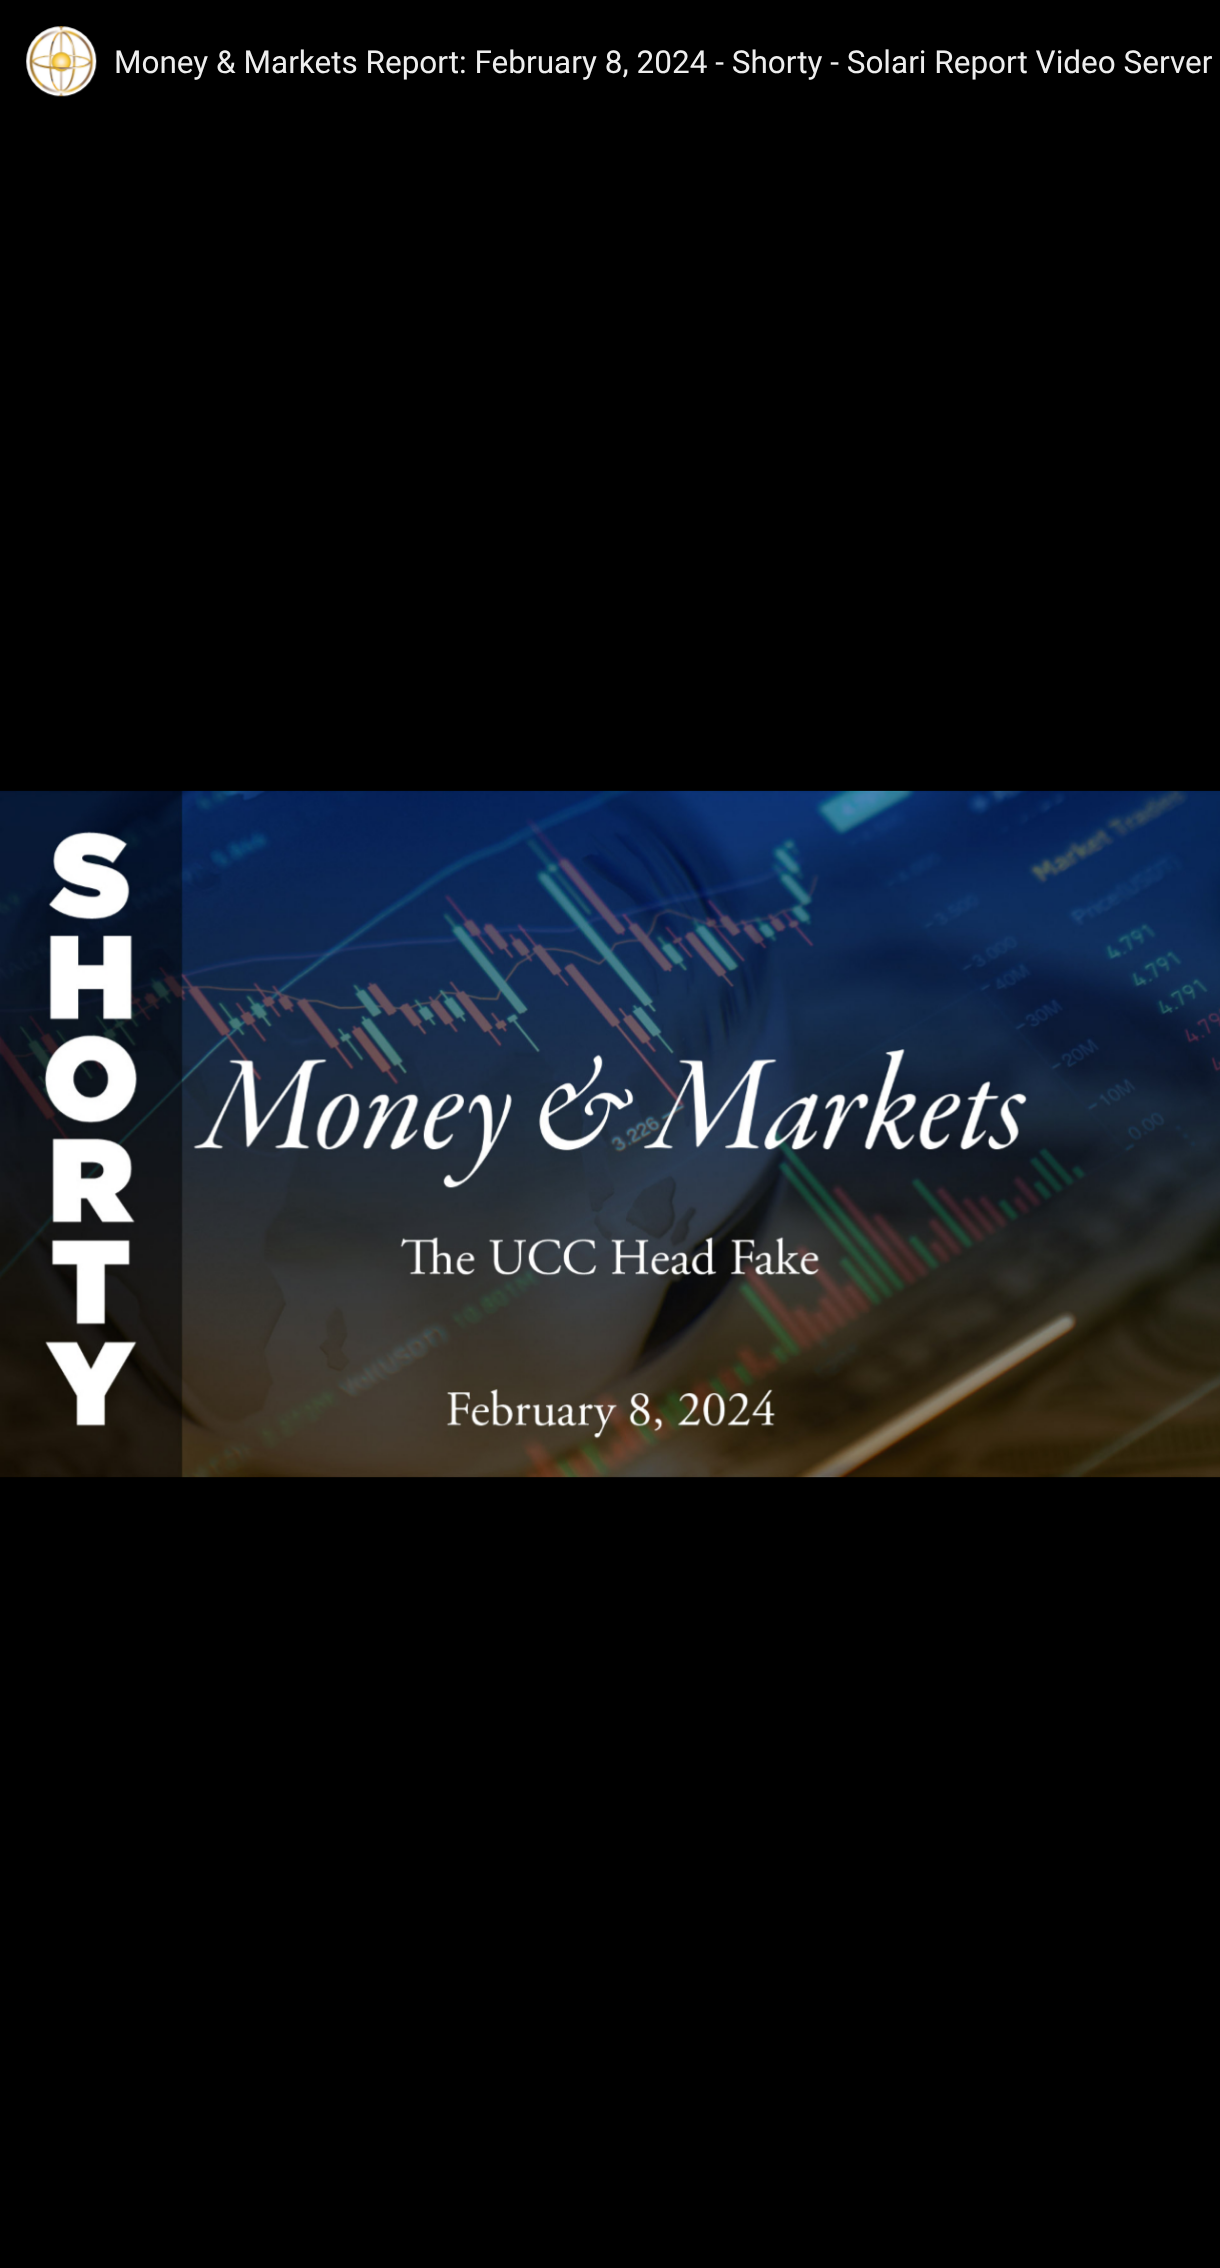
(async () => {
  const canvas = document.querySelector("canvas");
  canvas.width = 1220;
  canvas.height = 2268;
  const ctx = canvas.getContext("2d");
  ctx.miterLimit = 4;
  ctx.fontKerning = "normal";
  async function loadImage(src) {
    const img = new Image();
    img.src = src;
    await img.decode();
    return img;
  }

  ctx.fillStyle = "#000000";
  ctx.fillRect(0, 0, 1220, 2268);
  ctx.drawImage(await loadImage("img/1.png"), 26, 26, 71, 71);
  ctx.drawImage(await loadImage("img/3.png"), 0, 791, 1220, 686);
  ctx.drawImage(await loadImage("img/2.png"), 0, 790, 1220, 688);
  ctx.font = "31.5px Roboto";
  ctx.fillStyle = "#eeeeee";
  ctx.fillText("Money & Markets Report: February 8, 2024 - Shorty - Solari Report Video Server", 114, 73);
})();
